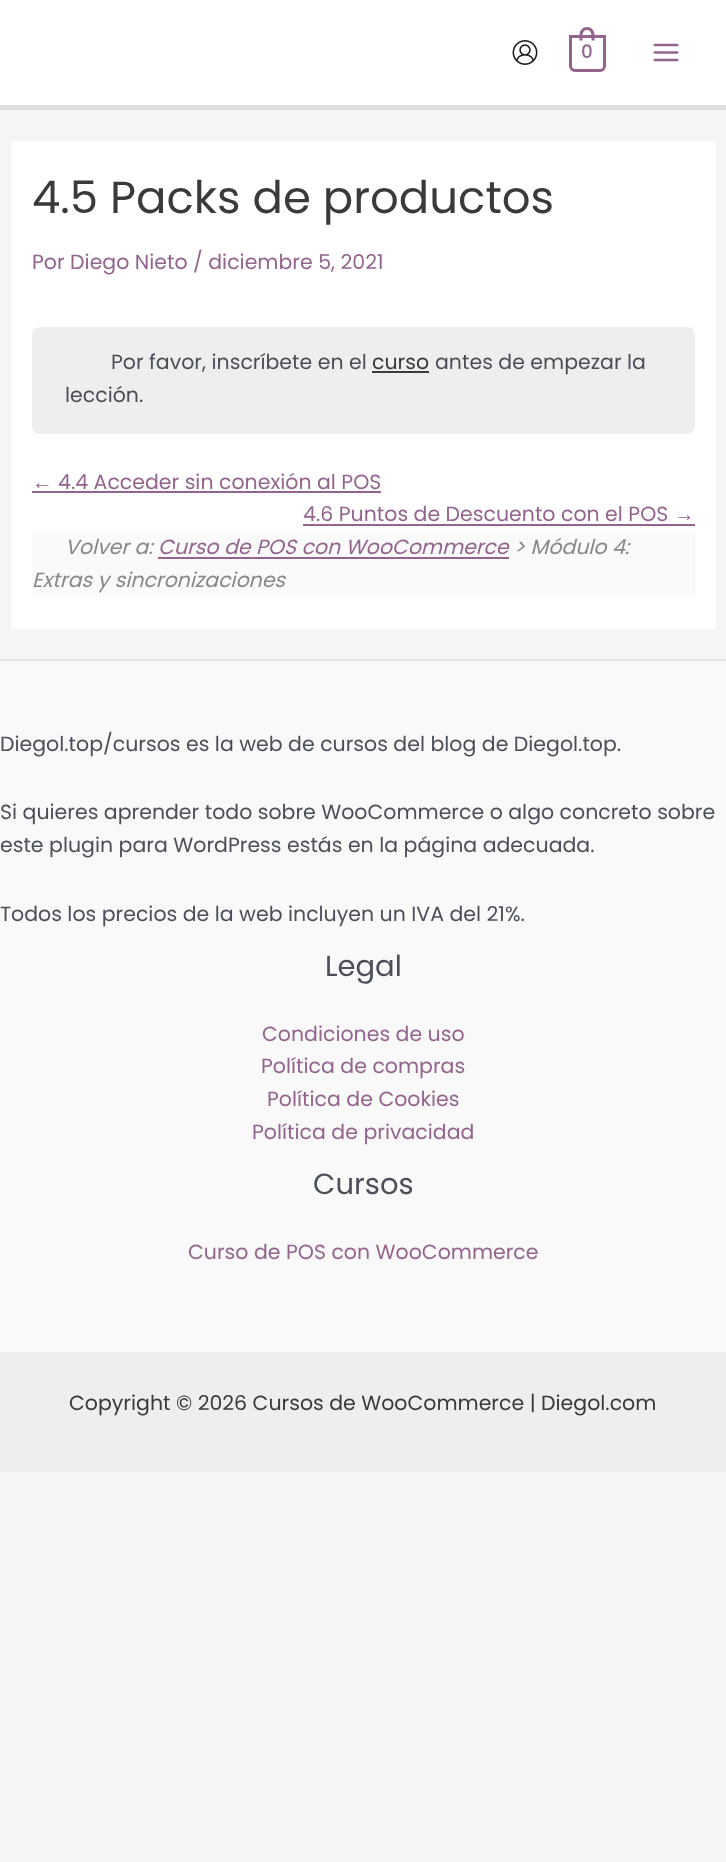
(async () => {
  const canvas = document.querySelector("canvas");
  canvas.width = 726;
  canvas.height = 1862;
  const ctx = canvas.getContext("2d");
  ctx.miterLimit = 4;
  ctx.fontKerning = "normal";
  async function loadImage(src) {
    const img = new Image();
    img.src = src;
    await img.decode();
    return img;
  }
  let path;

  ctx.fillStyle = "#f5f5f5";
  ctx.fillRect(0, 0, 726, 1862);
  ctx.fillStyle = "#ffffff";
  ctx.fillRect(0, 0, 726, 105);
  ctx.fillStyle = "#dddddd";
  ctx.fillRect(0, 105, 726, 5);
  ctx.drawImage(await loadImage("img/1.png"), 512, 40, 26, 25);
  ctx.beginPath();
  ctx.roundRect(570.5, 36.5, 34, 34, [0, 0, 4.5, 4.5]);
  ctx.strokeStyle = "#93648d";
  ctx.lineWidth = 3;
  ctx.stroke();
  ctx.fillStyle = "#93648d";
  path = new Path2D("M587 27C591 27 594.5 30.5 594.5 34.5V40.5H579.5V34.5C579.5 30.5 583 27 587 27ZM587 30C592.5 30 591.5 37 591.5 40.5H582.5C582.5 37 581.5 30 587 30Z");
  ctx.fill(path, "evenodd");
  ctx.drawImage(await loadImage("img/2.png"), 653, 43, 26, 19);
  ctx.fillStyle = "#ffffff";
  ctx.fillRect(11, 141, 705, 488);
  ctx.fillStyle = "#eeeeee";
  ctx.beginPath();
  ctx.roundRect(32, 327, 663, 107, 8);
  ctx.fill();
  for (const [x, y, w, h, color] of [
    [372, 371, 57, 2, "#3c3c3c"],
    [32, 491, 349, 2, "#93648d"],
    [303, 524, 392, 2, "#93648d"],
    [32, 533, 663, 64, "#fafafa"],
    [158, 557, 351, 2, "#93648d"],
    [0, 661, 726, 691, "#f9f9f9"],
    [0, 659, 726, 2, "#e6e6e6"],
    [0, 1352, 726, 120, "#eeeeee"],
  ]) {
    ctx.fillStyle = color;
    ctx.fillRect(x, y, w, h);
  }
  ctx.font = "bold 18px Poppins";
  ctx.fillStyle = "#93648d";
  ctx.fillText("0", 581, 58);
  ctx.font = "45px Poppins";
  ctx.fillStyle = "#3a3a3a";
  ctx.fillText("4.5 Packs de productos", 32, 213);
  ctx.font = "20.5px Poppins";
  ctx.fillStyle = "#93648d";
  ctx.fillText("Por Diego Nieto / diciembre 5, 2021", 32, 269);
  ctx.fillStyle = "#4b4f58";
  ctx.fillText("Por favor, inscríbete en el", 111, 369);
  ctx.fillStyle = "#3a3a3a";
  ctx.fillText("curso", 372, 369);
  ctx.fillStyle = "#4b4f58";
  ctx.fillText("antes de empezar la", 435, 369);
  ctx.fillText("lección.", 65, 402);
  ctx.font = "20.5px Liberation Sans";
  ctx.fillStyle = "#93648d";
  ctx.fillText("←", 32, 489);
  ctx.font = "20.5px Poppins";
  ctx.fillText("4.4 Acceder sin conexión al POS", 58, 489);
  ctx.fillText("4.6 Puntos de Descuento con el POS", 303, 521);
  ctx.font = "20.5px Liberation Sans";
  ctx.fillText("→", 674, 521);
  ctx.font = "italic 20.5px Poppins";
  ctx.fillStyle = "#888888";
  ctx.fillText("Volver a:", 65, 554);
  ctx.fillStyle = "#93648d";
  ctx.fillText("Curso de POS con WooCommerce", 158, 554);
  ctx.fillStyle = "#888888";
  ctx.fillText("> Módulo 4:", 514, 554);
  ctx.fillText("Extras y sincronizaciones", 32, 587);
  ctx.font = "20.5px Poppins";
  ctx.fillStyle = "#4b4f58";
  for (const [text, x, y] of [
    ["Diegol.top/cursos es la web de cursos del blog de Diegol.top.", 0, 751],
    ["Si quieres aprender todo sobre WooCommerce o algo concreto sobre", 0, 819],
    ["este plugin para WordPress estás en la página adecuada.", 0, 852],
    ["Todos los precios de la web incluyen un IVA del 21%.", 0, 921],
  ]) {
    ctx.fillText(text, x, y);
  }
  ctx.font = "29px Poppins";
  ctx.fillText("Legal", 325, 976);
  ctx.font = "20.5px Poppins";
  ctx.fillStyle = "#93648d";
  for (const [text, x, y] of [
    ["Condiciones de uso", 262, 1041],
    ["Política de compras", 261, 1073],
    ["Política de Cookies", 267, 1106],
    ["Política de privacidad", 252, 1139],
  ]) {
    ctx.fillText(text, x, y);
  }
  ctx.font = "29px Poppins";
  ctx.fillStyle = "#4b4f58";
  ctx.fillText("Cursos", 313, 1194);
  ctx.font = "20.5px Poppins";
  ctx.fillStyle = "#93648d";
  ctx.fillText("Curso de POS con WooCommerce", 188, 1259);
  ctx.fillStyle = "#3a3a3a";
  ctx.fillText("Copyright © 2026 Cursos de WooCommerce | Diegol.com", 69, 1410);
})();
